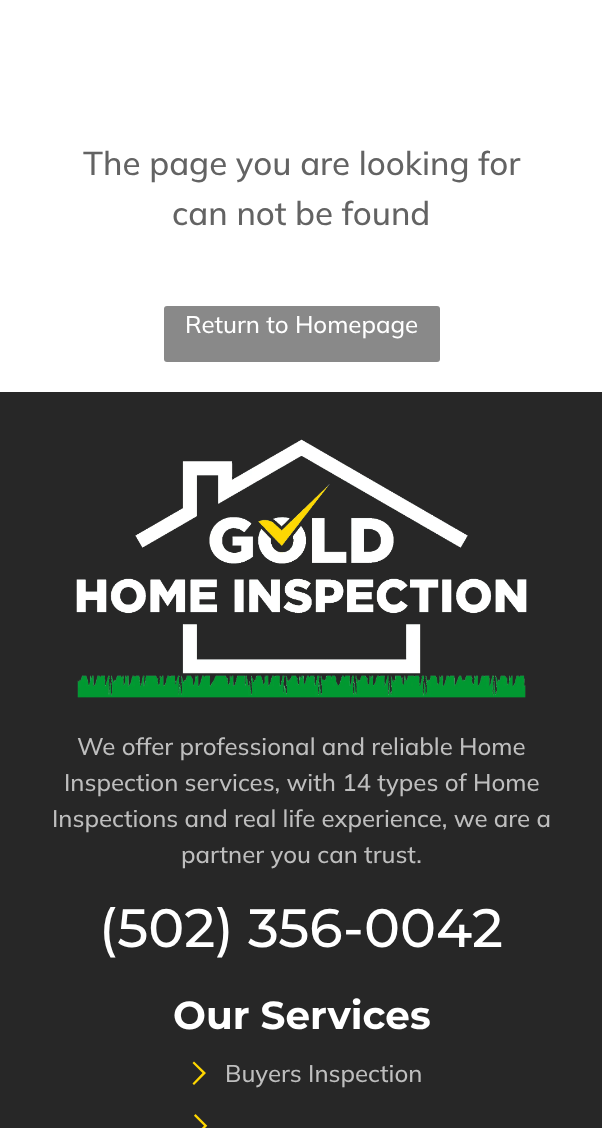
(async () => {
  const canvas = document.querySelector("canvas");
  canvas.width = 602;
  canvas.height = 1128;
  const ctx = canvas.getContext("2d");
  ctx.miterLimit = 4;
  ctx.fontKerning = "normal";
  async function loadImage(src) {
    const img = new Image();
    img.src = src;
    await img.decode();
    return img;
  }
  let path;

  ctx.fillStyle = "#ffffff";
  ctx.fillRect(0, 0, 602, 1128);
  ctx.fillStyle = "#898989";
  ctx.beginPath();
  ctx.roundRect(164, 306, 276, 56, 3);
  ctx.fill();
  ctx.fillStyle = "#272727";
  ctx.fillRect(0, 392, 602, 736);
  ctx.drawImage(await loadImage("img/1.png"), 76, 439, 451, 259);
  ctx.fillStyle = "#ffd700";
  path = new Path2D("M206 1073L194 1085L192.5 1083.5L202.5 1073L192.5 1063L194 1061.5Z");
  ctx.fill(path);
  ctx.drawImage(await loadImage("img/2.png"), 194, 1114, 14, 14);
  ctx.font = "500 33px Mulish";
  ctx.fillStyle = "#636363";
  ctx.fillText("The page you are looking for", 83, 175);
  ctx.fillText("can not be found", 172, 225);
  ctx.font = "500 24px Mulish";
  ctx.fillStyle = "#ffffff";
  ctx.fillText("Return to Homepage", 185, 333);
  ctx.fillStyle = "#bebebe";
  for (const [text, x, y] of [
    ["We offer professional and reliable Home", 77, 755],
    ["Inspection services, with 14 types of Home", 64, 791],
    ["Inspections and real life experience, we are a", 52, 827],
    ["partner you can trust.", 181, 863],
  ]) {
    ctx.fillText(text, x, y);
  }
  ctx.font = "500 54px Montserrat";
  ctx.fillStyle = "#ffffff";
  ctx.fillText("(502) 356-0042", 99, 947);
  ctx.font = "bold 39px Montserrat";
  ctx.fillText("Our Services", 173, 1029);
  ctx.font = "500 24px Mulish";
  ctx.fillStyle = "#bebebe";
  ctx.fillText("Buyers Inspection", 225, 1082);
})();
